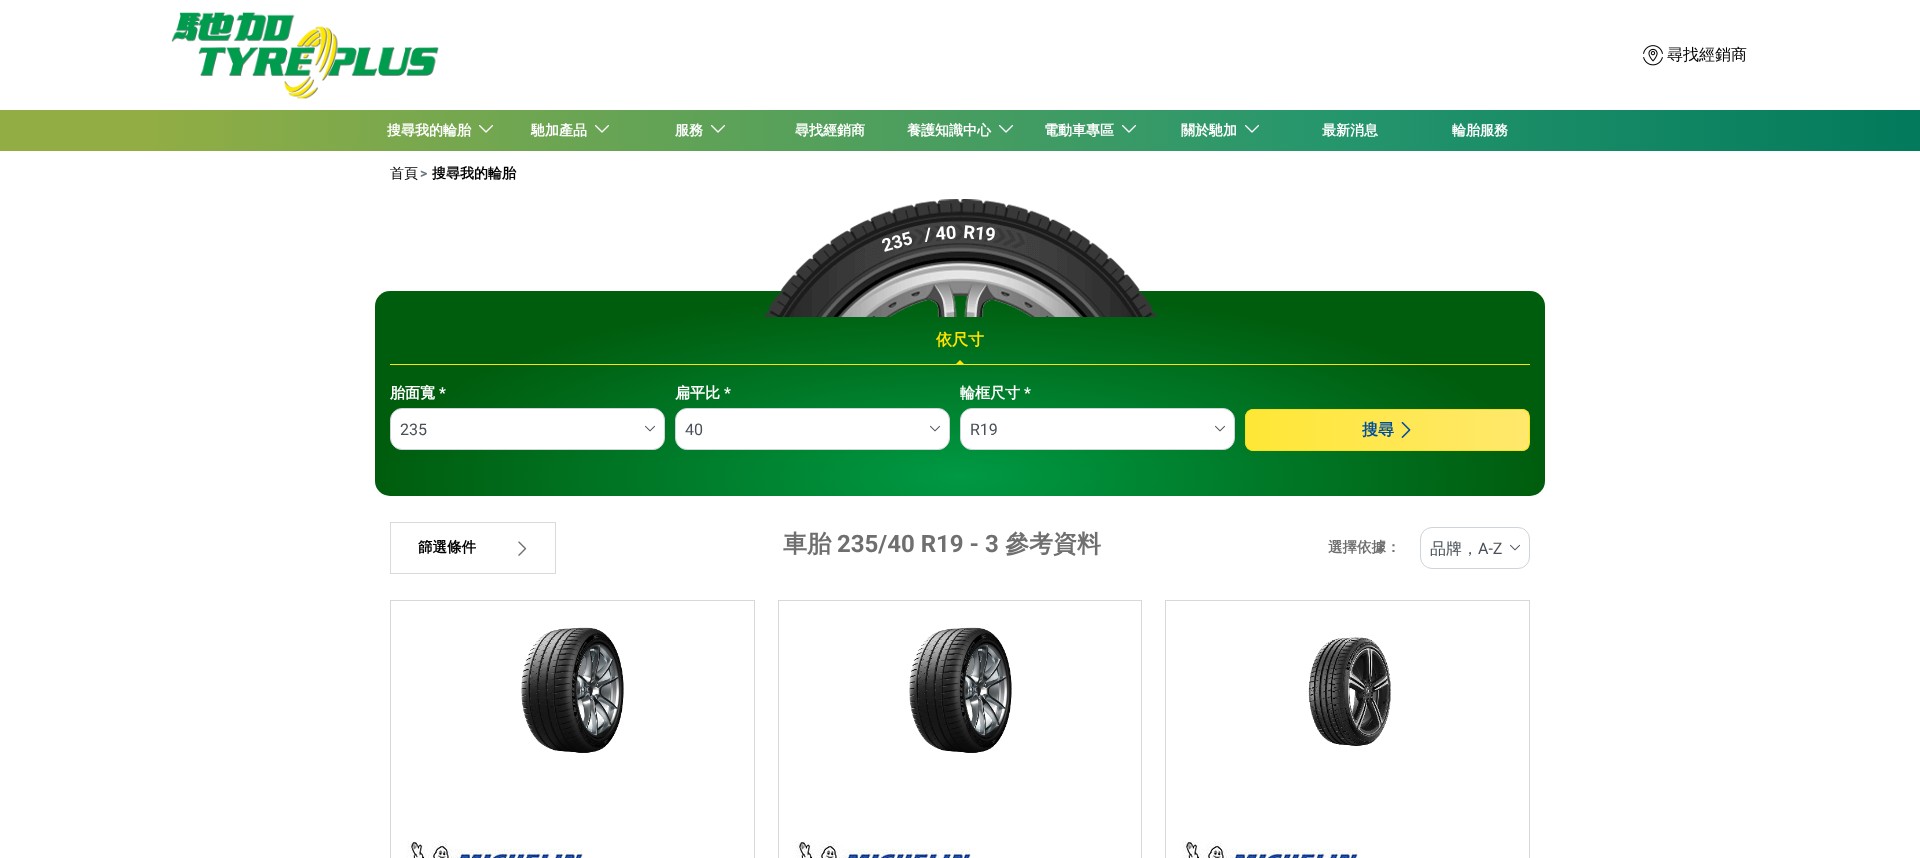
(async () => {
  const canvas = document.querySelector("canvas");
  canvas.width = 1920;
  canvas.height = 858;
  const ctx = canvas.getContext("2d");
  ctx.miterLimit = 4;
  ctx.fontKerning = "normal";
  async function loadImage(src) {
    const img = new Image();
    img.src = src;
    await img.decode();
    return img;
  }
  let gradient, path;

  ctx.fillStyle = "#ffffff";
  ctx.fillRect(0, 0, 1920, 858);
  ctx.drawImage(await loadImage("img/1.png"), 171, 12, 268, 87);
  ctx.drawImage(await loadImage("img/2.png"), 1643, 45, 20, 21);
  gradient = ctx.createLinearGradient(0, 131, 1920, 130);
  gradient.addColorStop(0.08, "#91ad44");
  gradient.addColorStop(0.69, "#26966d");
  gradient.addColorStop(1, "#027a5b");
  ctx.fillStyle = gradient;
  ctx.fillRect(0, 110, 1920, 41);
  ctx.drawImage(await loadImage("img/3.png"), 479, 125, 14, 8);
  ctx.drawImage(await loadImage("img/4.png"), 595, 125, 14, 8);
  ctx.drawImage(await loadImage("img/5.png"), 711, 125, 14, 8);
  ctx.drawImage(await loadImage("img/6.png"), 999, 125, 14, 8);
  ctx.drawImage(await loadImage("img/7.png"), 1122, 125, 14, 8);
  ctx.drawImage(await loadImage("img/8.png"), 1245, 125, 14, 8);
  gradient = ctx.createRadialGradient(960, 1508.25, 0, 960, 1508.25, 827);
  gradient.addColorStop(0, "#009944");
  gradient.addColorStop(0.7, "#005d0e");
  ctx.fillStyle = gradient;
  ctx.beginPath();
  ctx.roundRect(375, 291, 1170, 205, 15);
  ctx.save();
  ctx.clip();
  ctx.scale(1, 261 / 827);
  ctx.fillRect(0, 0, 1920, 2719);
  ctx.restore();
  ctx.drawImage(await loadImage("img/9.png"), 763, 199, 395, 118);
  ctx.fillStyle = "#ffe500";
  ctx.fillRect(390, 364, 1140, 1);
  path = new Path2D("M965 365H955L960 360Z");
  ctx.fill(path);
  ctx.fillStyle = "#ffffff";
  ctx.beginPath();
  ctx.roundRect(390.5, 408.5, 274, 41, 11.5);
  ctx.fill();
  ctx.strokeStyle = "#ced4da";
  ctx.stroke();
  ctx.drawImage(await loadImage("img/10.png"), 645, 425, 10, 7);
  ctx.beginPath();
  ctx.roundRect(675.5, 408.5, 274, 41, 11.5);
  ctx.fill();
  ctx.stroke();
  ctx.drawImage(await loadImage("img/10.png"), 930, 425, 10, 7);
  ctx.beginPath();
  ctx.roundRect(960.5, 408.5, 274, 41, 11.5);
  ctx.fill();
  ctx.stroke();
  ctx.drawImage(await loadImage("img/10.png"), 1215, 425, 10, 7);
  ctx.save();
  ctx.beginPath();
  ctx.roundRect(1245, 409, 285, 42, 8);
  ctx.clip();
  gradient = ctx.createLinearGradient(963, 430, 1529, 430);
  gradient.addColorStop(0, "#ffe600");
  gradient.addColorStop(1, "#ffe86c");
  ctx.fillStyle = gradient;
  ctx.beginPath();
  ctx.roundRect(1245, 409, 284, 42, [8, 0, 0, 8]);
  ctx.fill();
  ctx.restore();
  ctx.beginPath();
  ctx.roundRect(1245.5, 409.5, 284, 41, 7.5);
  ctx.strokeStyle = "#fae110";
  ctx.stroke();
  ctx.drawImage(await loadImage("img/11.png"), 1401, 421, 10, 17);
  ctx.strokeStyle = "#dadada";
  ctx.strokeRect(390.5, 522.5, 165, 51);
  ctx.drawImage(await loadImage("img/12.png"), 518, 541, 9, 15);
  ctx.beginPath();
  ctx.roundRect(1420.5, 527.5, 109, 41, 11.5);
  ctx.strokeStyle = "#ced4da";
  ctx.stroke();
  ctx.drawImage(await loadImage("img/10.png"), 1510, 544, 10, 7);
  ctx.strokeStyle = "#d8d8d8";
  ctx.strokeRect(390.5, 600.5, 364, 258);
  ctx.drawImage(await loadImage("img/13.png"), 521, 627, 103, 126);
  ctx.drawImage(await loadImage("img/14.png"), 407, 841, 176, 17);
  ctx.strokeRect(778.5, 600.5, 363, 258);
  ctx.drawImage(await loadImage("img/15.png"), 909, 627, 103, 126);
  ctx.drawImage(await loadImage("img/14.png"), 795, 841, 176, 17);
  ctx.strokeRect(1165.5, 600.5, 364, 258);
  ctx.drawImage(await loadImage("img/16.png"), 1308, 637, 83, 109);
  ctx.drawImage(await loadImage("img/14.png"), 1182, 841, 176, 17);
  ctx.font = "500 16px WenQuanYi Zen Hei";
  ctx.fillStyle = "#000000";
  ctx.fillText("尋找經銷商", 1667, 60);
  ctx.font = "bold 14px WenQuanYi Zen Hei";
  ctx.fillStyle = "#ffffff";
  for (const [text, x, y] of [
    ["搜尋我的輪胎", 387, 135],
    ["馳加產品", 531, 135],
    ["服務", 675, 135],
    ["尋找經銷商", 795, 135],
    ["養護知識中心", 907, 135],
    ["電動車專區", 1044, 135],
    ["關於馳加", 1181, 135],
    ["最新消息", 1322, 135],
    ["輪胎服務", 1452, 135],
  ]) {
    ctx.fillText(text, x, y);
  }
  ctx.font = "500 14px WenQuanYi Zen Hei";
  ctx.fillStyle = "#000000";
  ctx.fillText("首頁", 390, 178);
  ctx.font = "bold 14px Roboto";
  ctx.fillStyle = "#6c757d";
  ctx.fillText(">", 420, 178);
  ctx.font = "bold 14px WenQuanYi Zen Hei";
  ctx.fillStyle = "#000000";
  ctx.fillText("搜尋我的輪胎", 432, 178);
  ctx.font = "bold 18px Roboto";
  ctx.fillStyle = "#ffffff";
  ctx.save();
  ctx.translate(884, 252);
  ctx.rotate(-16 * Math.PI / 180);
  ctx.fillText("235", 0, 0);
  ctx.restore();
  ctx.save();
  ctx.translate(925, 241);
  ctx.rotate(-5 * Math.PI / 180);
  ctx.fillText("/ 40", 0, 0);
  ctx.restore();
  ctx.save();
  ctx.translate(963, 238);
  ctx.rotate(5 * Math.PI / 180);
  ctx.fillText("R19", 0, 0);
  ctx.restore();
  ctx.font = "bold 16px WenQuanYi Zen Hei";
  ctx.fillStyle = "#ffe500";
  ctx.fillText("依尺寸", 936, 345);
  ctx.font = "bold 15px WenQuanYi Zen Hei";
  ctx.fillStyle = "#ffffff";
  ctx.fillText("胎面寬", 390, 398);
  ctx.font = "bold 15px Roboto";
  ctx.fillText("*", 439, 398);
  ctx.font = "16px Roboto";
  ctx.fillStyle = "#495057";
  ctx.fillText("235", 400, 435);
  ctx.font = "bold 15px WenQuanYi Zen Hei";
  ctx.fillStyle = "#ffffff";
  ctx.fillText("扁平比", 675, 398);
  ctx.font = "bold 15px Roboto";
  ctx.fillText("*", 724, 398);
  ctx.font = "16px Roboto";
  ctx.fillStyle = "#495057";
  ctx.fillText("40", 685, 435);
  ctx.font = "bold 15px WenQuanYi Zen Hei";
  ctx.fillStyle = "#ffffff";
  ctx.fillText("輪框尺寸", 960, 398);
  ctx.font = "bold 15px Roboto";
  ctx.fillText("*", 1024, 398);
  ctx.font = "16px Roboto";
  ctx.fillStyle = "#495057";
  ctx.fillText("R19", 970, 435);
  ctx.font = "bold 16px WenQuanYi Zen Hei";
  ctx.fillStyle = "#004f9f";
  ctx.fillText("搜尋", 1362, 435);
  ctx.font = "bold 14.5px WenQuanYi Zen Hei";
  ctx.fillStyle = "#000000";
  ctx.fillText("篩選條件", 418, 552);
  ctx.font = "bold 24px WenQuanYi Zen Hei";
  ctx.fillStyle = "#706f6f";
  ctx.fillText("車胎", 783, 552);
  ctx.font = "bold 24px Roboto";
  ctx.fillText("235/40 R19 - 3", 837, 552);
  ctx.font = "bold 24px WenQuanYi Zen Hei";
  ctx.fillText("參考資料", 1005, 552);
  ctx.font = "bold 14.5px WenQuanYi Zen Hei";
  ctx.fillText("選擇依據：", 1328, 552);
  ctx.font = "500 16px WenQuanYi Zen Hei";
  ctx.fillStyle = "#495057";
  ctx.fillText("品牌，", 1430, 554);
  ctx.font = "16px Roboto";
  ctx.fillText("A-Z", 1478, 554);
})();
